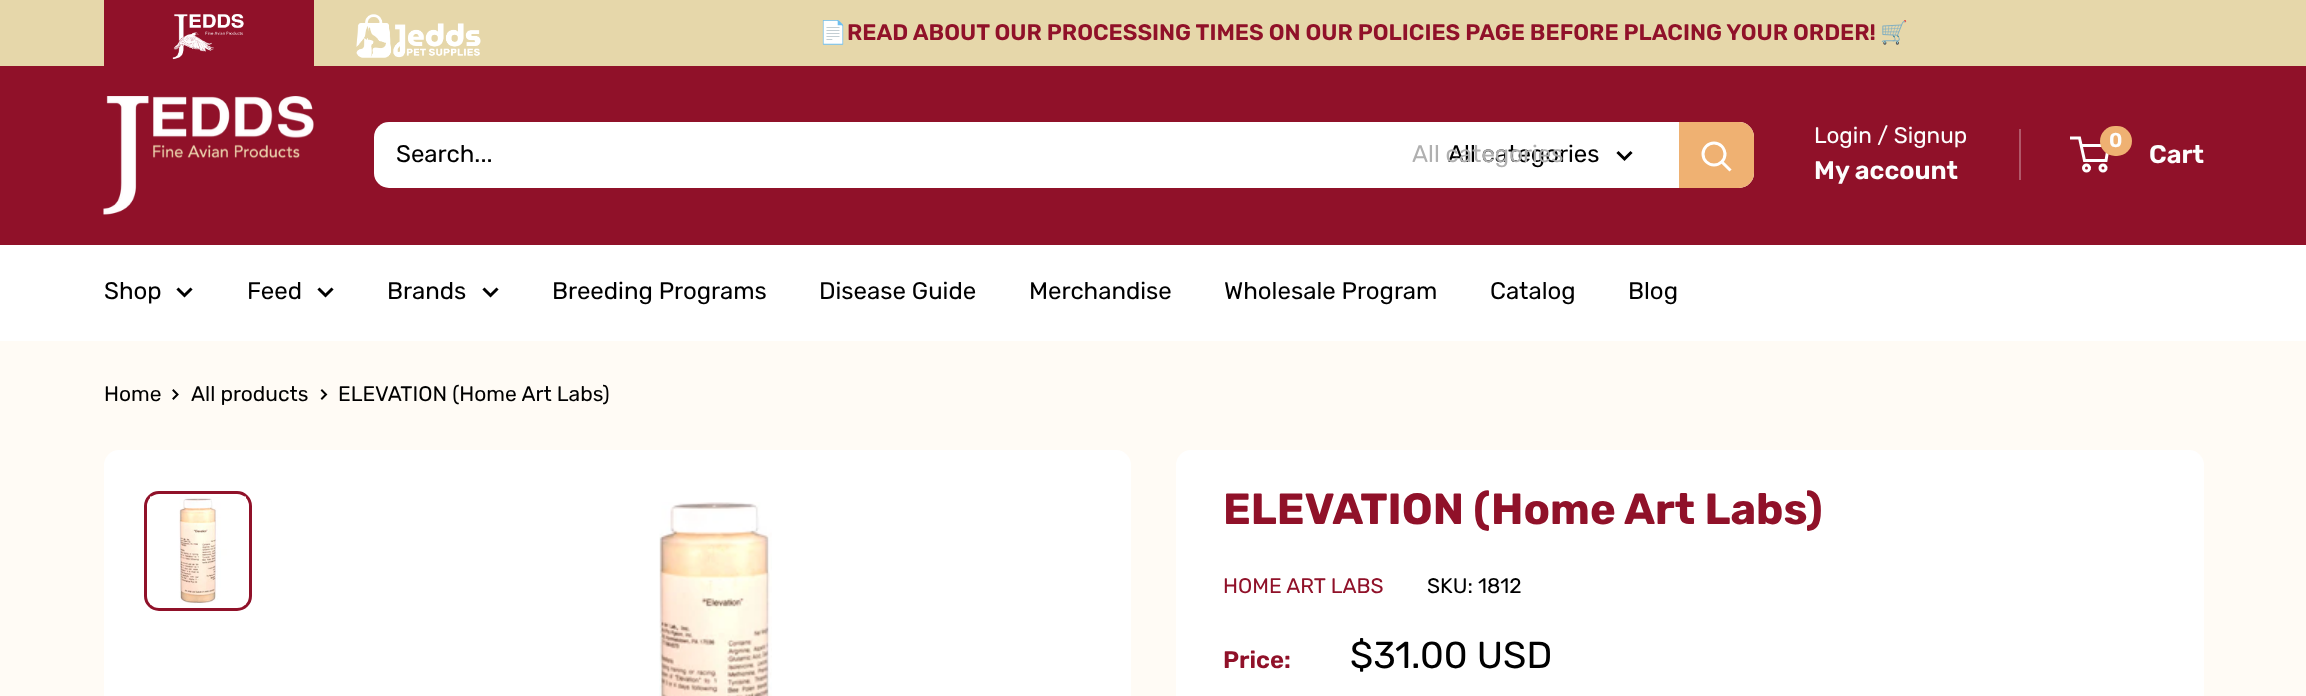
(async () => {
  const canvas = document.querySelector("canvas");
  canvas.width = 2306;
  canvas.height = 696;
  const ctx = canvas.getContext("2d");
  ctx.miterLimit = 4;
  ctx.fontKerning = "normal";
  async function loadImage(src) {
    const img = new Image();
    img.src = src;
    await img.decode();
    return img;
  }
  let path;

  ctx.fillStyle = "#fffbf5";
  ctx.fillRect(0, 0, 2306, 696);
  ctx.fillStyle = "#e6d7aa";
  ctx.fillRect(0, 0, 2306, 66);
  ctx.fillStyle = "#901129";
  ctx.fillRect(104, 0, 210, 66);
  ctx.drawImage(await loadImage("img/1.png"), 172, 14, 72, 46);
  ctx.drawImage(await loadImage("img/2.png"), 356, 14, 125, 44);
  ctx.fillRect(0, 66, 2306, 179);
  ctx.drawImage(await loadImage("img/3.png"), 103, 96, 211, 119);
  ctx.fillStyle = "#ffffff";
  ctx.beginPath();
  ctx.roundRect(374, 122, 1380, 66, 15);
  ctx.fill();
  path = new Path2D("M1630.5 153L1624.5 159L1618.5 153");
  ctx.strokeStyle = "#000000";
  ctx.lineWidth = 3;
  ctx.lineCap = "square";
  ctx.stroke(path);
  ctx.fillStyle = "#efb172";
  ctx.beginPath();
  ctx.roundRect(1679, 122, 75, 66, [0, 15, 15, 0]);
  ctx.fill();
  path = new Path2D("M1729.5 169.5L1722 162");
  ctx.strokeStyle = "#ffffff";
  ctx.stroke(path);
  ctx.beginPath();
  ctx.arc(1714, 154, 11, 0, Math.PI * 2);
  ctx.stroke();
  ctx.fillStyle = "#b15869";
  ctx.fillRect(2019, 129, 2, 51);
  ctx.beginPath();
  ctx.arc(2086.5, 168, 3, 0, Math.PI * 2);
  ctx.stroke();
  ctx.beginPath();
  ctx.arc(2103, 168, 3, 0, Math.PI * 2);
  ctx.stroke();
  path = new Path2D("M2081 145.5H2108.5L2106 160.5H2084.5L2079.5 138H2070");
  ctx.lineCap = "butt";
  ctx.stroke(path);
  ctx.fillStyle = "#efb172";
  ctx.beginPath();
  ctx.roundRect(2100, 126, 32, 30, 15);
  ctx.fill();
  ctx.fillStyle = "#ffffff";
  ctx.fillRect(0, 245, 2306, 96);
  path = new Path2D("M190.5 289.5L184.5 295.5L178.5 289.5");
  ctx.strokeStyle = "#000000";
  ctx.lineCap = "square";
  ctx.stroke(path);
  path = new Path2D("M331.5 289.5L325.5 295.5L319.5 289.5");
  ctx.stroke(path);
  path = new Path2D("M496.5 289.5L490.5 295.5L484.5 289.5");
  ctx.stroke(path);
  path = new Path2D("M173.5 390.5L177.5 394.5L173.5 398.5");
  ctx.lineWidth = 2;
  ctx.stroke(path);
  path = new Path2D("M322 390.5L326 394.5L322 398.5");
  ctx.stroke(path);
  ctx.beginPath();
  ctx.roundRect(104, 450, 1027, 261, 15);
  ctx.fill();
  ctx.beginPath();
  ctx.roundRect(145.5, 492.5, 105, 117, 13.5);
  ctx.strokeStyle = "#901129";
  ctx.lineWidth = 3;
  ctx.stroke();
  ctx.drawImage(await loadImage("img/4.png"), 150, 496, 96, 109);
  ctx.drawImage(await loadImage("img/5.png"), 659, 502, 113, 194);
  ctx.beginPath();
  ctx.roundRect(1176, 450, 1028, 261, 15);
  ctx.fill();
  ctx.font = "bold 22.5px Noto Color Emoji";
  ctx.fillStyle = "#901129";
  ctx.fillText("📄", 819, 40);
  ctx.font = "600 22.5px Rubik";
  ctx.fillText("READ ABOUT OUR PROCESSING TIMES ON OUR POLICIES PAGE BEFORE PLACING YOUR ORDER!", 847, 40);
  ctx.font = "bold 22.5px Noto Color Emoji";
  ctx.fillText("🛒", 1880, 40);
  ctx.font = "24px Rubik";
  ctx.fillStyle = "#000000";
  ctx.fillText("Search...", 396, 162);
  ctx.fillText("All categories", 1448, 162);
  ctx.fillStyle = "#b0b0b0";
  ctx.fillText("All categories", 1412, 162);
  ctx.font = "22.5px Rubik";
  ctx.fillStyle = "#fdfdfd";
  ctx.fillText("Login / Signup", 1814, 143);
  ctx.font = "600 25.5px Rubik";
  ctx.fillText("My account", 1814, 179);
  ctx.font = "600 20px Rubik";
  ctx.fillText("0", 2109, 147);
  ctx.font = "600 25.5px Rubik";
  ctx.fillText("Cart", 2149, 163);
  ctx.font = "24px Rubik";
  ctx.fillStyle = "#000000";
  for (const [text, x, y] of [
    ["Shop", 104, 299],
    ["Feed", 247, 299],
    ["Brands", 387, 299],
    ["Breeding Programs", 552, 299],
    ["Disease Guide", 819, 299],
    ["Merchandise", 1029, 299],
    ["Wholesale Program", 1224, 299],
    ["Catalog", 1490, 299],
    ["Blog", 1628, 299],
  ]) {
    ctx.fillText(text, x, y);
  }
  ctx.font = "21px Rubik";
  for (const [text, x, y] of [
    ["Home", 104, 401],
    ["All products", 191, 401],
    ["ELEVATION (Home Art Labs)", 338, 401],
  ]) {
    ctx.fillText(text, x, y);
  }
  ctx.font = "bold 43.5px Rubik";
  ctx.fillStyle = "#901129";
  ctx.fillText("ELEVATION (Home Art Labs)", 1223, 524);
  ctx.font = "21px Rubik";
  ctx.fillText("HOME ART LABS", 1223, 593);
  ctx.fillStyle = "#000000";
  ctx.fillText("SKU: 1812", 1427, 593);
  ctx.font = "600 24px Rubik";
  ctx.fillStyle = "#901129";
  ctx.fillText("Price:", 1223, 668);
  ctx.font = "37.5px Rubik";
  ctx.fillStyle = "#000000";
  ctx.fillText("$31.00 USD", 1350, 668);
})();
